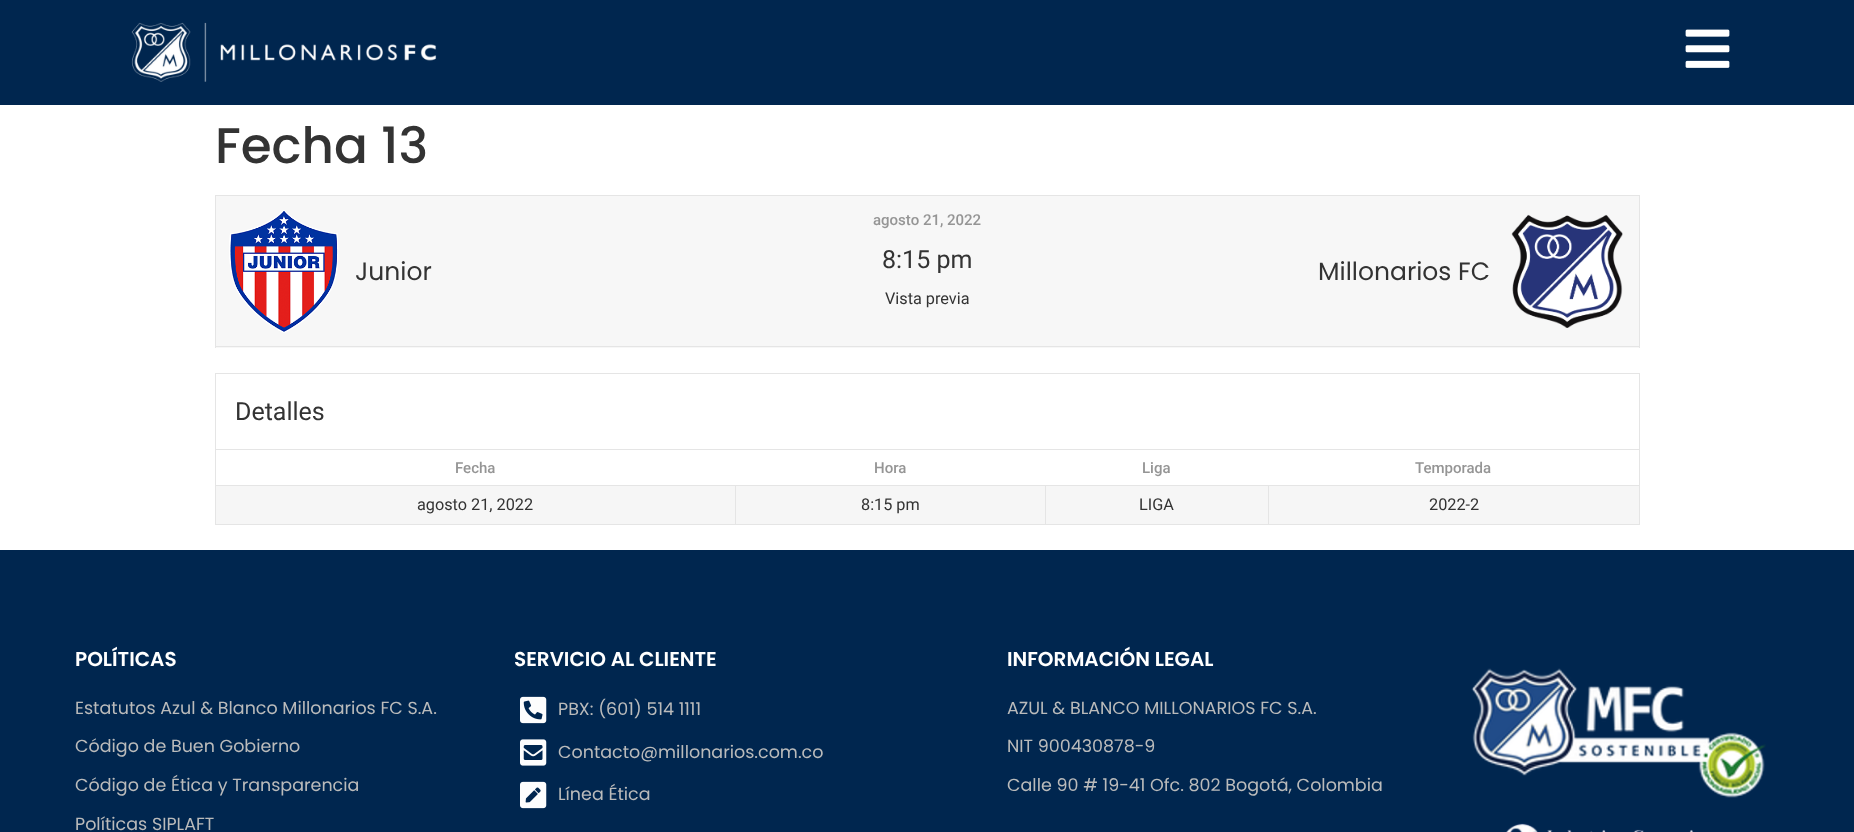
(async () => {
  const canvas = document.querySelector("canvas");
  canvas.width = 1854;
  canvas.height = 832;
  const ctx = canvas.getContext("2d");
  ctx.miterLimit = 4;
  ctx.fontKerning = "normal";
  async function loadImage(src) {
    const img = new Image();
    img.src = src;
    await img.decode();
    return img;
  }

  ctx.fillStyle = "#ffffff";
  ctx.fillRect(0, 0, 1854, 832);
  ctx.fillStyle = "#00264f";
  ctx.fillRect(0, 0, 1854, 105);
  ctx.drawImage(await loadImage("img/1.png"), 131, 22, 306, 60);
  ctx.drawImage(await loadImage("img/2.png"), 1685, 29, 45, 39);
  for (const [x, y, w, h, color] of [
    [215, 195, 1425, 1, "#e5e5e5"],
    [1639, 195, 1, 153, "#e5e5e5"],
    [216, 196, 1423, 152, "#f7f7f7"],
    [215, 346, 1425, 1, "#e5e5e5"],
    [215, 195, 1, 153, "#e5e5e5"],
  ]) {
    ctx.fillStyle = color;
    ctx.fillRect(x, y, w, h);
  }
  ctx.drawImage(await loadImage("img/3.png"), 229, 210, 110, 123);
  ctx.drawImage(await loadImage("img/4.png"), 1511, 214, 112, 114);
  for (const [x, y, w, h, color] of [
    [215, 373, 1425, 1, "#e5e5e5"],
    [1639, 373, 1, 76, "#e5e5e5"],
    [215, 373, 1, 76, "#e5e5e5"],
    [215, 449, 1425, 1, "#e5e5e5"],
    [1639, 449, 1, 76, "#e5e5e5"],
    [215, 524, 1425, 1, "#e5e5e5"],
    [215, 449, 1, 76, "#e5e5e5"],
    [216, 486, 519, 38, "#f6f6f6"],
    [1268, 485, 372, 1, "#e5e5e5"],
    [1268, 485, 1, 40, "#e5e5e5"],
    [1045, 485, 224, 1, "#e5e5e5"],
    [1045, 485, 1, 40, "#e5e5e5"],
    [735, 485, 311, 1, "#e5e5e5"],
    [735, 485, 1, 40, "#e5e5e5"],
    [215, 485, 521, 1, "#e5e5e5"],
    [736, 486, 309, 38, "#f6f6f6"],
    [1046, 486, 222, 38, "#f6f6f6"],
    [1269, 486, 370, 38, "#f6f6f6"],
    [0, 550, 1854, 282, "#00264f"],
  ]) {
    ctx.fillStyle = color;
    ctx.fillRect(x, y, w, h);
  }
  ctx.drawImage(await loadImage("img/5.png"), 520, 696, 27, 28);
  ctx.drawImage(await loadImage("img/6.png"), 520, 739, 27, 27);
  ctx.drawImage(await loadImage("img/7.png"), 520, 781, 27, 28);
  ctx.drawImage(await loadImage("img/8.png"), 1471, 668, 295, 130);
  ctx.drawImage(await loadImage("img/9.png"), 1506, 823, 188, 9);
  ctx.font = "500 50px Poppins";
  ctx.fillStyle = "#333333";
  ctx.fillText("Fecha 13", 215, 163);
  ctx.font = "500 15px Roboto";
  ctx.fillStyle = "#959595";
  ctx.fillText("agosto 21, 2022", 873, 225);
  ctx.font = "25px Poppins";
  ctx.fillStyle = "#333333";
  ctx.fillText("Junior", 355, 280);
  ctx.font = "25px Roboto";
  ctx.fillText("8:15 pm", 882, 268);
  ctx.font = "25px Poppins";
  ctx.fillText("Millonarios FC", 1318, 280);
  ctx.font = "16.25px Roboto";
  ctx.fillText("Vista previa", 885, 304);
  ctx.font = "25px Roboto";
  ctx.fillText("Detalles", 235, 420);
  ctx.font = "500 15px Roboto";
  ctx.fillStyle = "#959595";
  for (const [text, x, y] of [
    ["Fecha", 455, 473],
    ["Hora", 874, 473],
    ["Liga", 1142, 473],
    ["Temporada", 1415, 473],
  ]) {
    ctx.fillText(text, x, y);
  }
  ctx.font = "16.25px Roboto";
  ctx.fillStyle = "#333333";
  for (const [text, x, y] of [
    ["agosto 21, 2022", 417, 510],
    ["8:15 pm", 861, 510],
    ["LIGA", 1139, 510],
    ["2022-2", 1429, 510],
  ]) {
    ctx.fillText(text, x, y);
  }
  ctx.font = "600 20px Poppins";
  ctx.fillStyle = "#ffffff";
  ctx.fillText("POLÍTICAS", 75, 666);
  ctx.font = "17.5px Poppins";
  ctx.fillStyle = "#babbbb";
  for (const [text, x, y] of [
    ["Estatutos Azul & Blanco Millonarios FC S.A.", 75, 714],
    ["Código de Buen Gobierno", 75, 752],
    ["Código de Ética y Transparencia", 75, 791],
    ["Políticas SIPLAFT", 75, 830],
  ]) {
    ctx.fillText(text, x, y);
  }
  ctx.font = "600 20px Poppins";
  ctx.fillStyle = "#ffffff";
  ctx.fillText("SERVICIO AL CLIENTE", 514, 666);
  ctx.font = "17.5px Poppins";
  ctx.fillStyle = "#babbbb";
  for (const [text, x, y] of [
    ["PBX: (601) 514 1111", 558, 715],
    ["Contacto@millonarios.com.co", 558, 758],
    ["Línea Ética", 558, 800],
  ]) {
    ctx.fillText(text, x, y);
  }
  ctx.font = "600 20px Poppins";
  ctx.fillStyle = "#ffffff";
  ctx.fillText("INFORMACIÓN LEGAL", 1007, 666);
  ctx.font = "17.5px Poppins";
  ctx.fillStyle = "#babbbb";
  for (const [text, x, y] of [
    ["AZUL & BLANCO MILLONARIOS FC S.A.", 1007, 714],
    ["NIT 900430878-9", 1007, 752],
    ["Calle 90 # 19-41 Ofc. 802 Bogotá, Colombia", 1007, 791],
  ]) {
    ctx.fillText(text, x, y);
  }
})();
